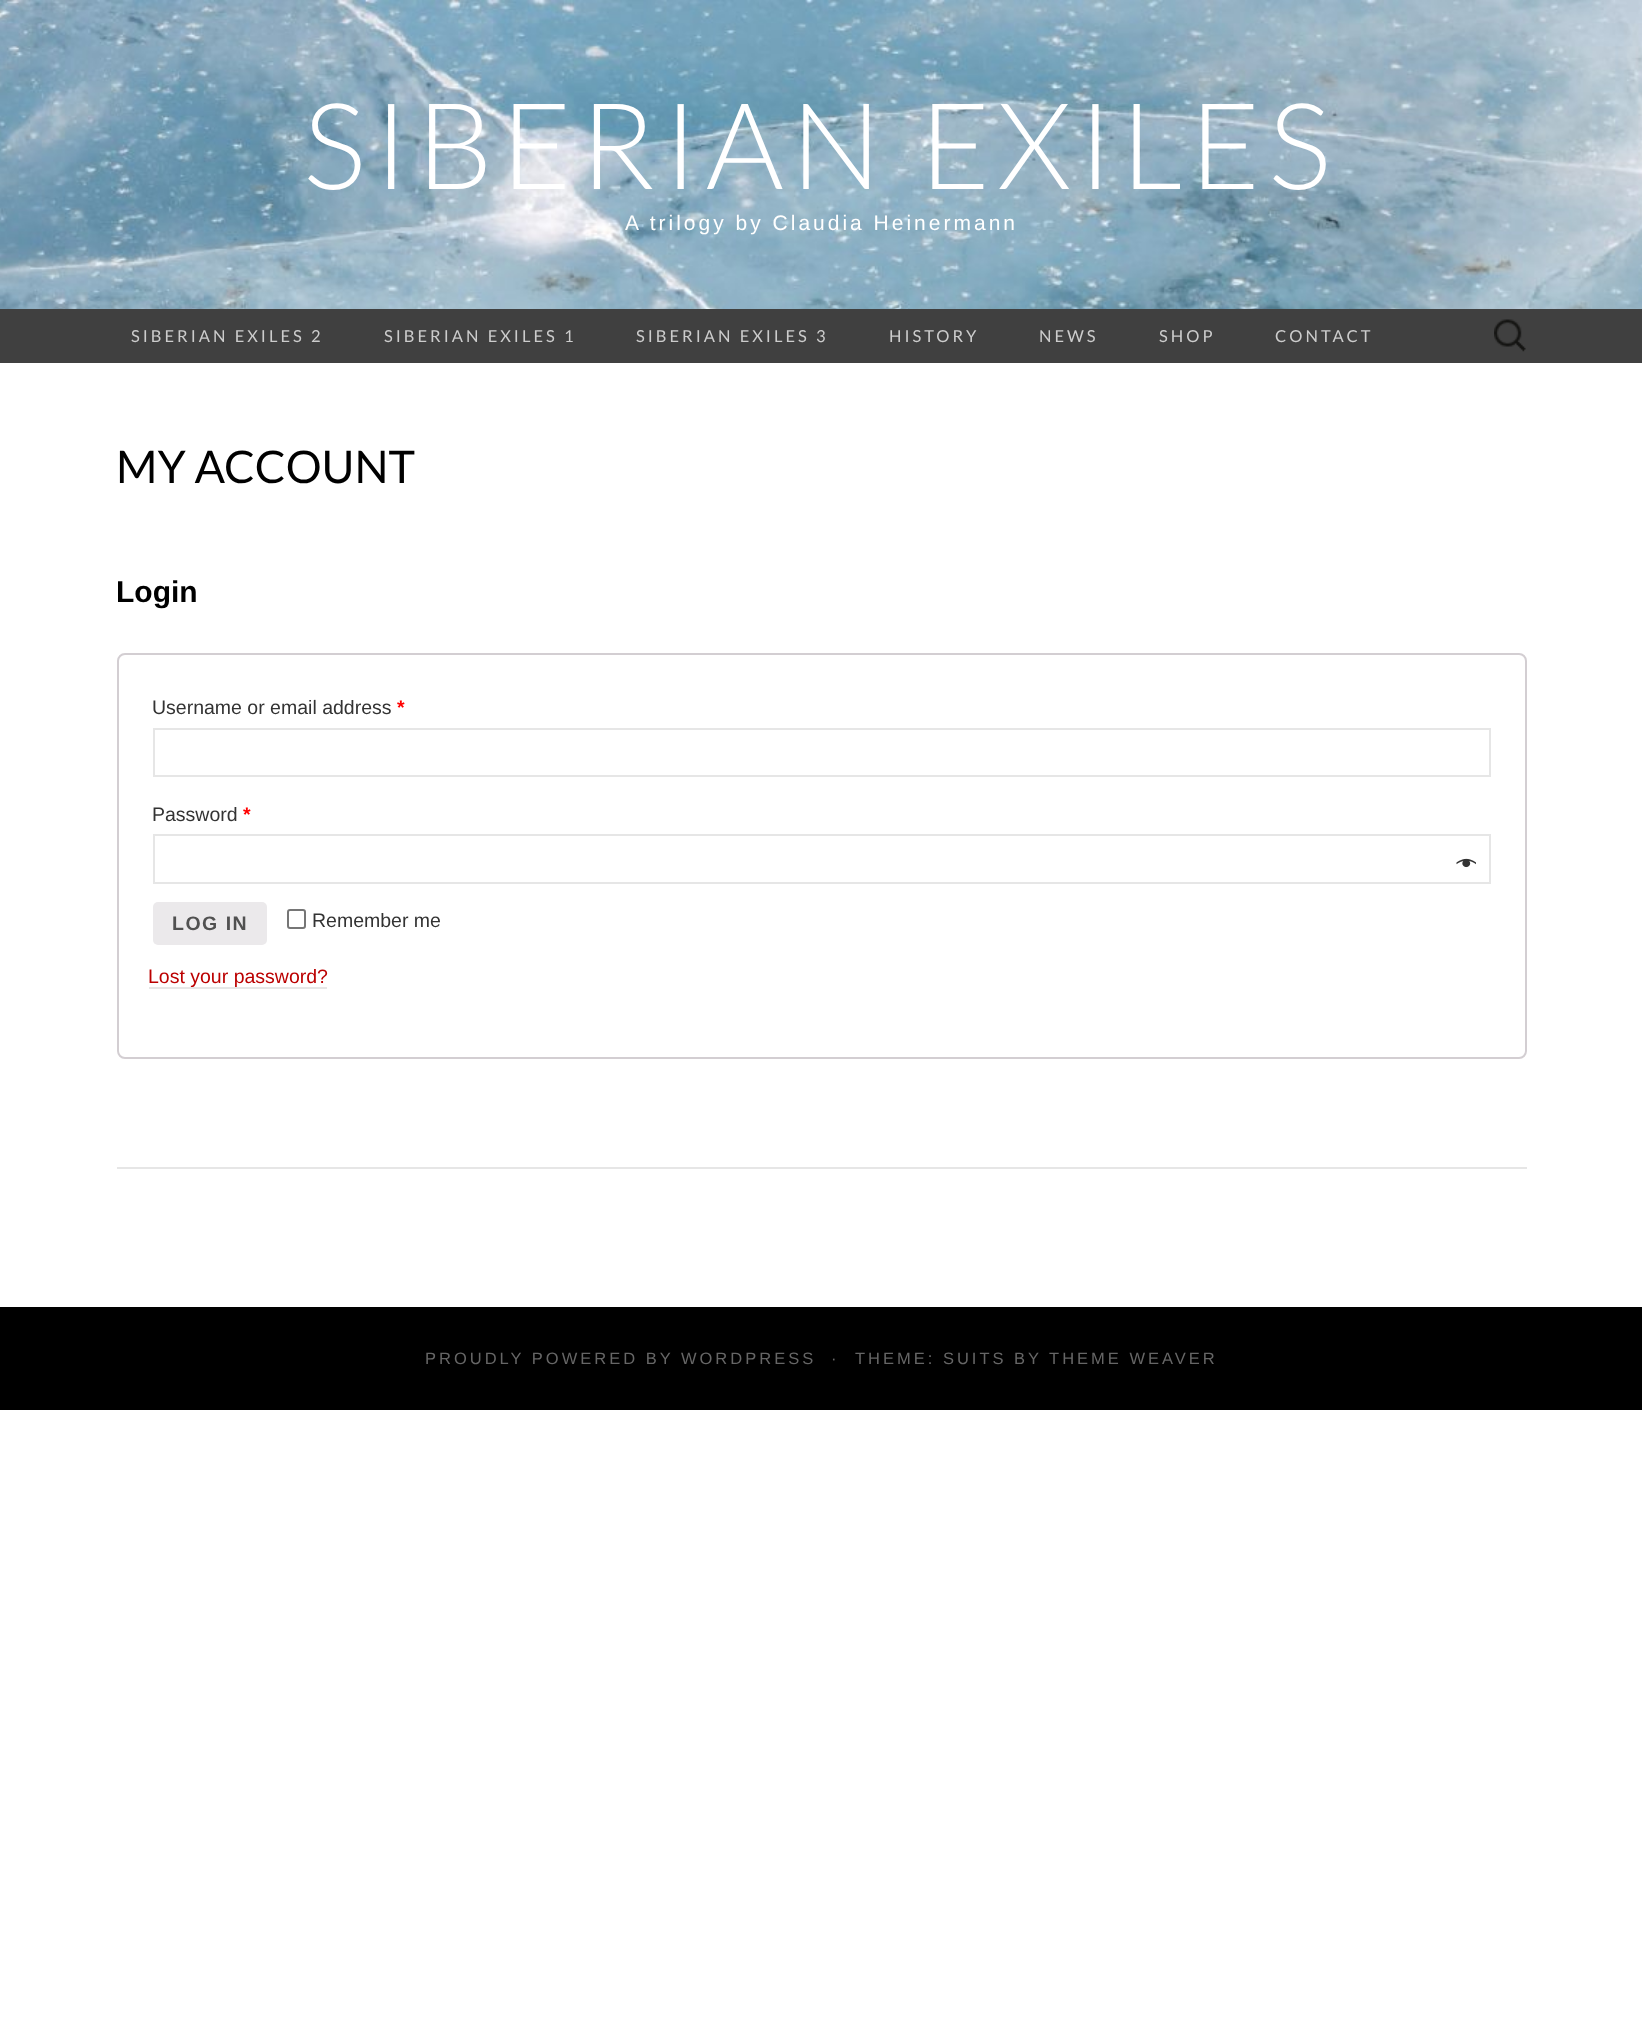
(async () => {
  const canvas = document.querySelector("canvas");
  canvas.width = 1642;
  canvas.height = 2018;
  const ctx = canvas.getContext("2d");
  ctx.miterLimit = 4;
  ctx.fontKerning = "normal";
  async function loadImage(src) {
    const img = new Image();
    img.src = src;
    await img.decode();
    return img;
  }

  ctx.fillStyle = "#ffffff";
  ctx.fillRect(0, 0, 1642, 2018);
  ctx.drawImage(await loadImage("img/1.png"), 0, 0, 1642, 309);
  ctx.fillStyle = "#404040";
  ctx.fillRect(0, 309, 1642, 54);
  ctx.drawImage(await loadImage("img/2.png"), 1494, 319, 32, 33);
  ctx.fillStyle = "#e6e6e6";
  ctx.fillRect(117, 1167, 1410, 2);
  ctx.beginPath();
  ctx.roundRect(118, 654, 1408, 404, 7);
  ctx.strokeStyle = "#d3ced2";
  ctx.lineWidth = 2;
  ctx.stroke();
  ctx.strokeStyle = "#e6e6e6";
  ctx.strokeRect(154, 729, 1336, 47);
  ctx.strokeRect(154, 835, 1336, 48);
  ctx.drawImage(await loadImage("img/3.png"), 1456, 858, 20, 10);
  ctx.fillStyle = "#ebe9eb";
  ctx.beginPath();
  ctx.roundRect(153, 902, 114, 43, 5);
  ctx.fill();
  ctx.beginPath();
  ctx.roundRect(288, 910, 17, 18, 2);
  ctx.strokeStyle = "#767676";
  ctx.stroke();
  ctx.fillStyle = "#e6e6e6";
  ctx.fillRect(149, 987, 178, 2);
  ctx.fillStyle = "#000000";
  ctx.fillRect(0, 1307, 1642, 103);
  ctx.letterSpacing = "7.5px";
  ctx.font = "300 120px Lato";
  ctx.fillStyle = "#ffffff";
  ctx.fillText("SIBERIAN EXILES", 303, 189);
  ctx.letterSpacing = "3px";
  ctx.font = "21px Liberation Sans";
  ctx.fillText("A trilogy by Claudia Heinermann", 625, 230);
  ctx.font = "16.5px Lato";
  ctx.fillStyle = "#cccccc";
  for (const [text, x, y] of [
    ["SIBERIAN EXILES 2", 131, 342],
    ["SIBERIAN EXILES 1", 384, 342],
    ["SIBERIAN EXILES 3", 636, 342],
    ["HISTORY", 889, 342],
    ["NEWS", 1039, 342],
    ["SHOP", 1159, 342],
    ["CONTACT", 1275, 342],
  ]) {
    ctx.fillText(text, x, y);
  }
  ctx.letterSpacing = "0px";
  ctx.font = "45px Lato";
  ctx.fillStyle = "#000000";
  ctx.fillText("MY ACCOUNT", 116, 483);
  ctx.font = "bold 30px Liberation Sans";
  ctx.fillText("Login", 116, 602);
  ctx.font = "19.5px Liberation Sans";
  ctx.fillStyle = "#333333";
  ctx.fillText("Username or email address", 152, 714);
  ctx.font = "bold 19.5px Liberation Sans";
  ctx.fillStyle = "#ff0000";
  ctx.fillText("*", 397, 714);
  ctx.font = "19.5px Liberation Sans";
  ctx.fillStyle = "#333333";
  ctx.fillText("Password", 152, 821);
  ctx.font = "bold 19.5px Liberation Sans";
  ctx.fillStyle = "#ff0000";
  ctx.fillText("*", 243, 821);
  ctx.letterSpacing = "1.5px";
  ctx.fillStyle = "#515151";
  ctx.fillText("LOG IN", 172, 930);
  ctx.letterSpacing = "0px";
  ctx.font = "19.5px Liberation Sans";
  ctx.fillStyle = "#333333";
  ctx.fillText("Remember me", 312, 927);
  ctx.fillStyle = "#bb0000";
  ctx.fillText("Lost your password?", 148, 983);
  ctx.letterSpacing = "3px";
  ctx.font = "16.5px Liberation Sans";
  ctx.fillStyle = "#666666";
  for (const [text, x, y] of [
    ["PROUDLY POWERED BY WORDPRESS", 425, 1364],
    ["·", 831, 1364],
    ["THEME: SUITS BY THEME WEAVER", 855, 1364],
  ]) {
    ctx.fillText(text, x, y);
  }
})();
